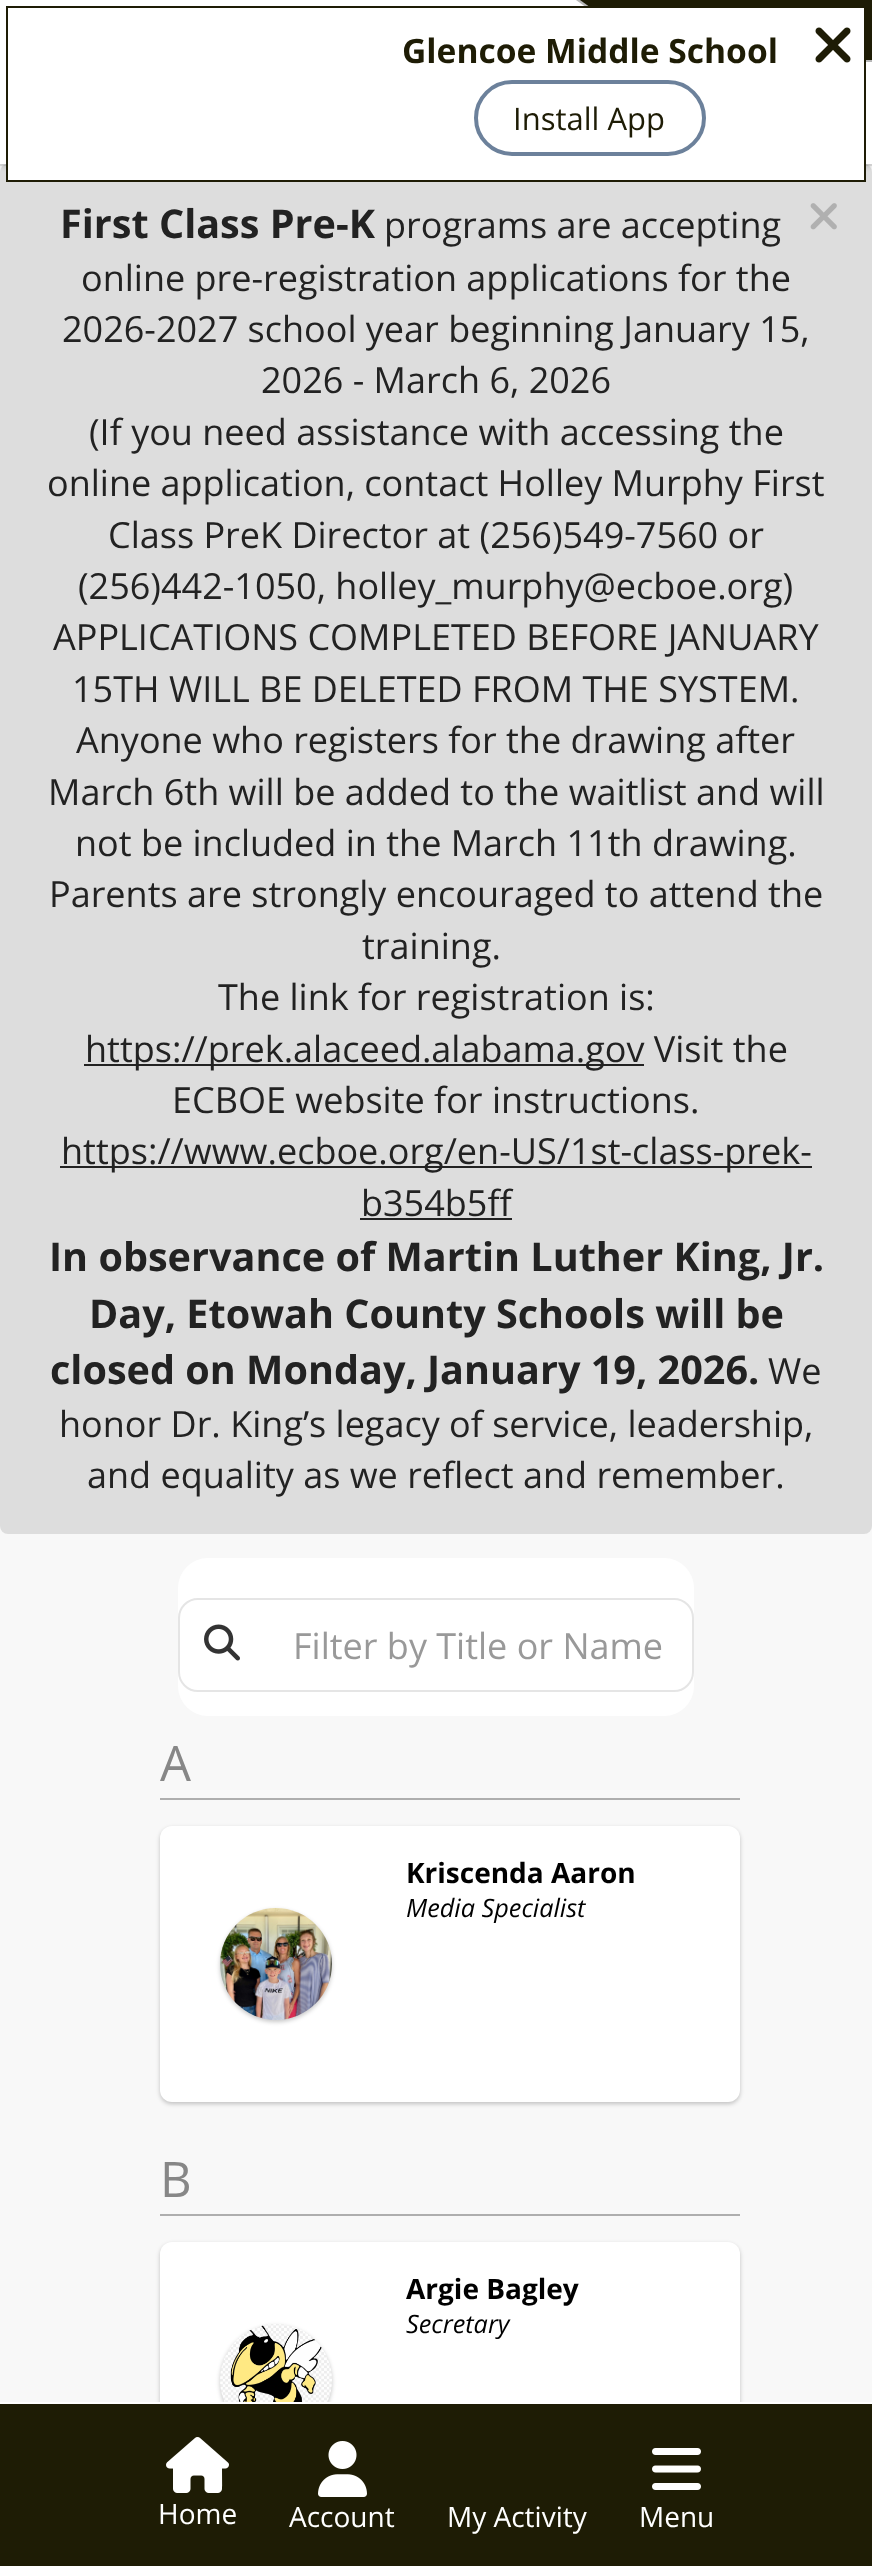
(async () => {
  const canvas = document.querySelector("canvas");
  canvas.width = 872;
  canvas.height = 2566;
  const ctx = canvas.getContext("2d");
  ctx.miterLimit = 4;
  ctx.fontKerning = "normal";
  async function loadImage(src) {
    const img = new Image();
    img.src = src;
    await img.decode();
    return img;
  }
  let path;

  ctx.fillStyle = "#f8f8f8";
  ctx.fillRect(0, 0, 872, 2566);
  ctx.fillStyle = "#dddddd";
  ctx.beginPath();
  ctx.roundRect(0, 164, 872, 1370, 8);
  ctx.fill();
  ctx.fillStyle = "rgba(0, 0, 0, 0.1)";
  ctx.fillRect(0, 164, 872, 2);
  ctx.filter = "blur(2px)";
  ctx.beginPath();
  ctx.rect(0, 4, 872, 164);
  ctx.fill();
  ctx.filter = "none";
  ctx.fillStyle = "#ffffff";
  ctx.fillRect(0, 0, 872, 164);
  ctx.fillStyle = "#b7b7b7";
  path = new Path2D("M576 0L662 62H872V0Z");
  ctx.fill(path);
  ctx.fillStyle = "#1e1c05";
  path = new Path2D("M580 0L664 60H872V0Z");
  ctx.fill(path);
  ctx.fillStyle = "#ffffff";
  ctx.fillRect(8, 8, 856, 172);
  ctx.beginPath();
  ctx.roundRect(476, 82, 228, 72, 36);
  ctx.strokeStyle = "#6c819b";
  ctx.lineWidth = 4;
  ctx.stroke();
  ctx.strokeStyle = "#1e1c05";
  ctx.lineWidth = 2;
  ctx.strokeRect(7, 7, 858, 174);
  ctx.drawImage(await loadImage("img/1.png"), 815, 27, 36, 36);
  ctx.drawImage(await loadImage("img/2.png"), 810, 203, 27, 27);
  for (const [x, y, w, h, color] of [
    [84, 1064, 560, 2, "#222222"],
    [60, 1166, 752, 2, "#222222"],
    [360, 1218, 152, 2, "#222222"],
  ]) {
    ctx.fillStyle = color;
    ctx.fillRect(x, y, w, h);
  }
  ctx.fillStyle = "#ffffff";
  ctx.beginPath();
  ctx.roundRect(178, 1558, 516, 158, 30);
  ctx.fill();
  ctx.beginPath();
  ctx.roundRect(179, 1599, 514, 92, 19);
  ctx.strokeStyle = "#e5e5e5";
  ctx.stroke();
  ctx.drawImage(await loadImage("img/3.png"), 204, 1624, 36, 37);
  ctx.fillStyle = "rgba(0, 0, 0, 0.22)";
  ctx.filter = "blur(2px)";
  ctx.beginPath();
  ctx.roundRect(160, 1828, 580, 276, 12);
  ctx.fill();
  ctx.filter = "none";
  ctx.fillStyle = "#ffffff";
  ctx.beginPath();
  ctx.roundRect(160, 1826, 580, 276, 12);
  ctx.fill();
  ctx.fillStyle = "#aeaeae";
  ctx.fillRect(160, 1798, 580, 2);
  ctx.fillStyle = "rgba(0, 0, 0, 0.22)";
  ctx.filter = "blur(2px)";
  ctx.beginPath();
  ctx.roundRect(220, 1910, 112, 112, 56);
  ctx.fill();
  ctx.filter = "none";
  ctx.drawImage(await loadImage("img/4.png"), 220, 1908, 112, 112);
  ctx.filter = "blur(2px)";
  ctx.beginPath();
  ctx.roundRect(160, 2244, 580, 276, 12);
  ctx.fill();
  ctx.filter = "none";
  ctx.fillStyle = "#ffffff";
  ctx.beginPath();
  ctx.roundRect(160, 2242, 580, 276, 12);
  ctx.fill();
  ctx.fillStyle = "#aeaeae";
  ctx.fillRect(160, 2214, 580, 2);
  ctx.fillStyle = "rgba(0, 0, 0, 0.22)";
  ctx.filter = "blur(2px)";
  ctx.beginPath();
  ctx.roundRect(220, 2326, 112, 112, 56);
  ctx.fill();
  ctx.filter = "none";
  ctx.drawImage(await loadImage("img/5.png"), 220, 2324, 112, 78);
  ctx.fillStyle = "#1e1c05";
  ctx.fillRect(0, 2404, 872, 162);
  ctx.fillStyle = "#ffffff";
  ctx.fillRect(0, 2402, 872, 2);
  ctx.drawImage(await loadImage("img/6.png"), 166, 2437, 63, 56);
  ctx.drawImage(await loadImage("img/7.png"), 318, 2441, 49, 56);
  ctx.drawImage(await loadImage("img/8.png"), 652, 2448, 49, 42);
  ctx.font = "bold 33.6px Open Sans";
  ctx.fillStyle = "#1e1c05";
  ctx.fillText("Glencoe Middle School", 402, 63);
  ctx.font = "31px Open Sans";
  ctx.fillText("Install App", 513, 130);
  ctx.font = "bold 39.6px Open Sans";
  ctx.fillStyle = "#222222";
  ctx.fillText("First Class Pre-K", 60, 238);
  ctx.font = "36px Open Sans";
  for (const [text, x, y] of [
    ["programs are accepting", 384, 238],
    ["online pre-registration applications for the", 81, 291],
    ["2026-2027 school year beginning January 15,", 62, 342],
    ["2026 - March 6, 2026", 261, 393],
    ["(If you need assistance with accessing the", 89, 445],
    ["online application, contact Holley Murphy First", 47, 496],
    ["Class PreK Director at (256)549-7560 or", 108, 548],
    ["(256)442-1050, holley_murphy@ecboe.org)", 78, 599],
    ["APPLICATIONS COMPLETED BEFORE JANUARY", 53, 650],
    ["15TH WILL BE DELETED FROM THE SYSTEM.", 72, 702],
    ["Anyone who registers for the drawing after", 76, 753],
    ["March 6th will be added to the waitlist and will", 48, 805],
    ["not be included in the March 11th drawing.", 75, 856],
    ["Parents are strongly encouraged to attend the", 49, 907],
    ["training.", 362, 959],
    ["The link for registration is:", 218, 1010],
    ["https://prek.alaceed.alabama.gov Visit the", 85, 1062],
    ["ECBOE website for instructions.", 172, 1113],
    ["https://www.ecboe.org/en-US/1st-class-prek-", 61, 1164],
    ["b354b5ff", 361, 1216],
  ]) {
    ctx.fillText(text, x, y);
  }
  ctx.font = "bold 39.6px Open Sans";
  for (const [text, x, y] of [
    ["In observance of Martin Luther King, Jr.", 49, 1271],
    ["Day, Etowah County Schools will be", 89, 1328],
    ["closed on Monday, January 19, 2026.", 50, 1384],
  ]) {
    ctx.fillText(text, x, y);
  }
  ctx.font = "36px Open Sans";
  for (const [text, x, y] of [
    ["We", 768, 1384],
    ["honor Dr. King’s legacy of service, leadership,", 59, 1437],
    ["and equality as we reflect and remember.", 87, 1488],
  ]) {
    ctx.fillText(text, x, y);
  }
  ctx.fillStyle = "#999999";
  ctx.fillText("Filter by Title or Name", 293, 1659);
  ctx.font = "49px Open Sans";
  ctx.fillStyle = "#878787";
  ctx.fillText("A", 160, 1781);
  ctx.font = "bold 28px Open Sans";
  ctx.fillStyle = "#000000";
  ctx.fillText("Kriscenda Aaron", 406, 1883);
  ctx.font = "italic 25.25px Open Sans";
  ctx.fillText("Media Specialist", 406, 1917);
  ctx.font = "49px Open Sans";
  ctx.fillStyle = "#878787";
  ctx.fillText("B", 160, 2197);
  ctx.font = "bold 28px Open Sans";
  ctx.fillStyle = "#000000";
  ctx.fillText("Argie Bagley", 406, 2299);
  ctx.font = "italic 25.25px Open Sans";
  ctx.fillText("Secretary", 406, 2333);
  ctx.font = "28px Open Sans";
  ctx.fillStyle = "#ffffff";
  for (const [text, x, y] of [
    ["Home", 158, 2524],
    ["Account", 289, 2527],
    ["My Activity", 447, 2527],
    ["Menu", 639, 2527],
  ]) {
    ctx.fillText(text, x, y);
  }
})();
